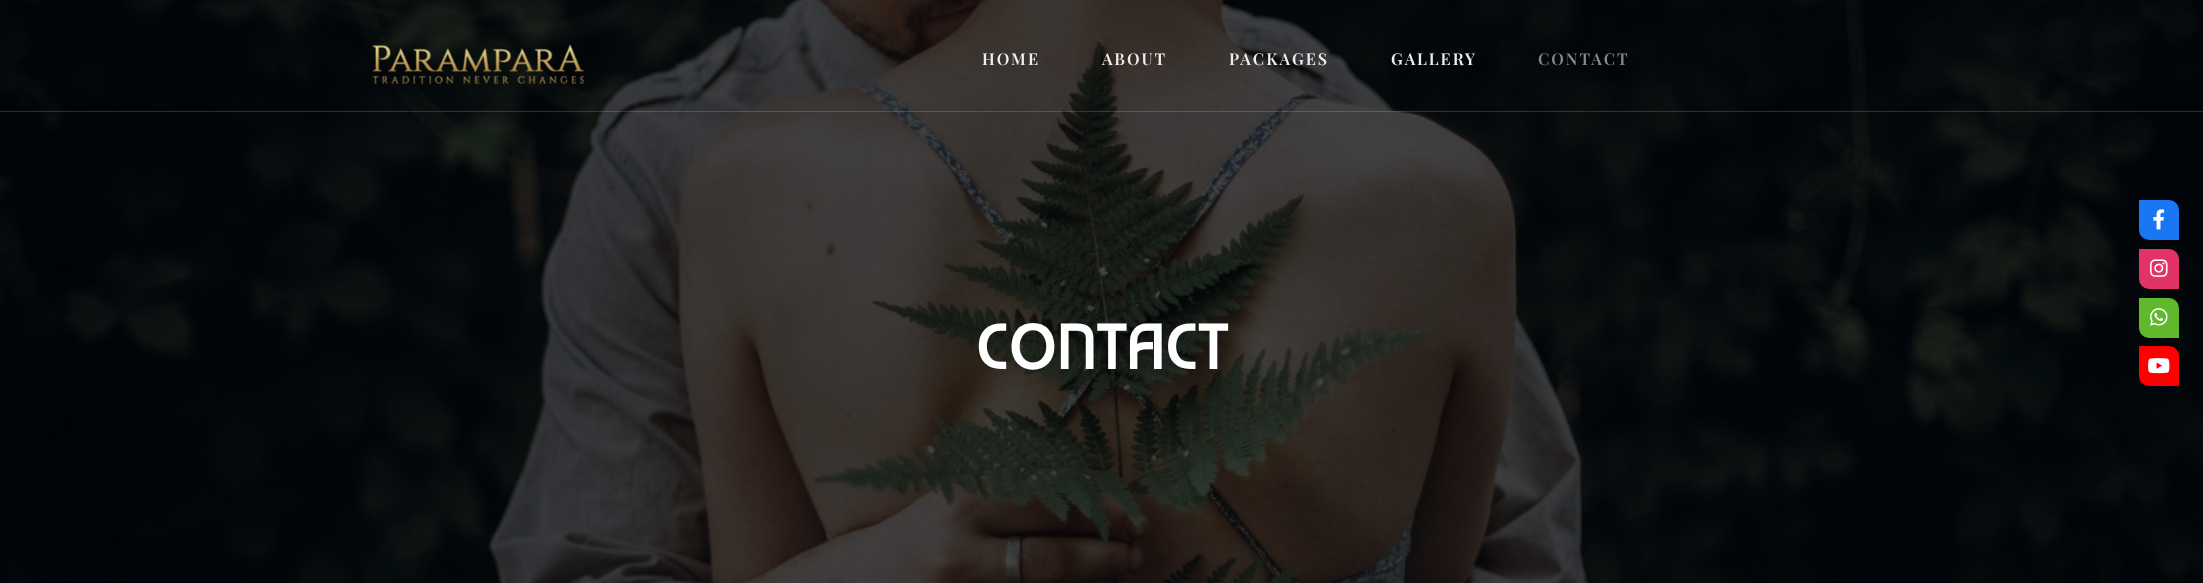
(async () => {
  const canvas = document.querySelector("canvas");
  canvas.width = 2203;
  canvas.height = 583;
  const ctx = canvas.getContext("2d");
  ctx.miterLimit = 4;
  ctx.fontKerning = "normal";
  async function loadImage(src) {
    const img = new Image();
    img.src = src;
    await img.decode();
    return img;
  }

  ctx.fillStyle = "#ffffff";
  ctx.fillRect(0, 0, 2203, 583);
  ctx.drawImage(await loadImage("img/2.png"), 0, 0, 2203, 583);
  ctx.fillStyle = "rgba(255, 255, 255, 0.16)";
  ctx.fillRect(0, 111, 2203, 1);
  ctx.drawImage(await loadImage("img/1.png"), 372, 44, 212, 41);
  ctx.fillStyle = "#1977f3";
  ctx.beginPath();
  ctx.roundRect(2139, 200, 40, 40, [0, 10, 0, 10]);
  ctx.fill();
  ctx.drawImage(await loadImage("img/3.png"), 2153, 209, 12, 21);
  ctx.fillStyle = "#e23367";
  ctx.beginPath();
  ctx.roundRect(2139, 249, 40, 40, [0, 10, 0, 10]);
  ctx.fill();
  ctx.drawImage(await loadImage("img/4.png"), 2150, 259, 18, 18);
  ctx.fillStyle = "#60b82d";
  ctx.beginPath();
  ctx.roundRect(2139, 298, 40, 40, [0, 10, 0, 10]);
  ctx.fill();
  ctx.drawImage(await loadImage("img/5.png"), 2150, 308, 18, 18);
  ctx.fillStyle = "#ff0000";
  ctx.beginPath();
  ctx.roundRect(2139, 346, 40, 40, [0, 10, 0, 10]);
  ctx.fill();
  ctx.drawImage(await loadImage("img/6.png"), 2148, 358, 22, 16);
  ctx.letterSpacing = "2px";
  ctx.font = "600 16.25px Playfair Display";
  ctx.fillStyle = "#ededed";
  for (const [text, x, y] of [
    ["HOME", 982, 65],
    ["ABOUT", 1102, 65],
    ["PACKAGES", 1229, 65],
    ["GALLERY", 1391, 65],
  ]) {
    ctx.fillText(text, x, y);
  }
  ctx.fillStyle = "#898989";
  ctx.fillText("CONTACT", 1538, 65);
  ctx.letterSpacing = "0px";
  ctx.font = "bold 62.5px Baumans";
  ctx.fillStyle = "#ffffff";
  ctx.fillText("CONTACT", 975, 369);
})();
